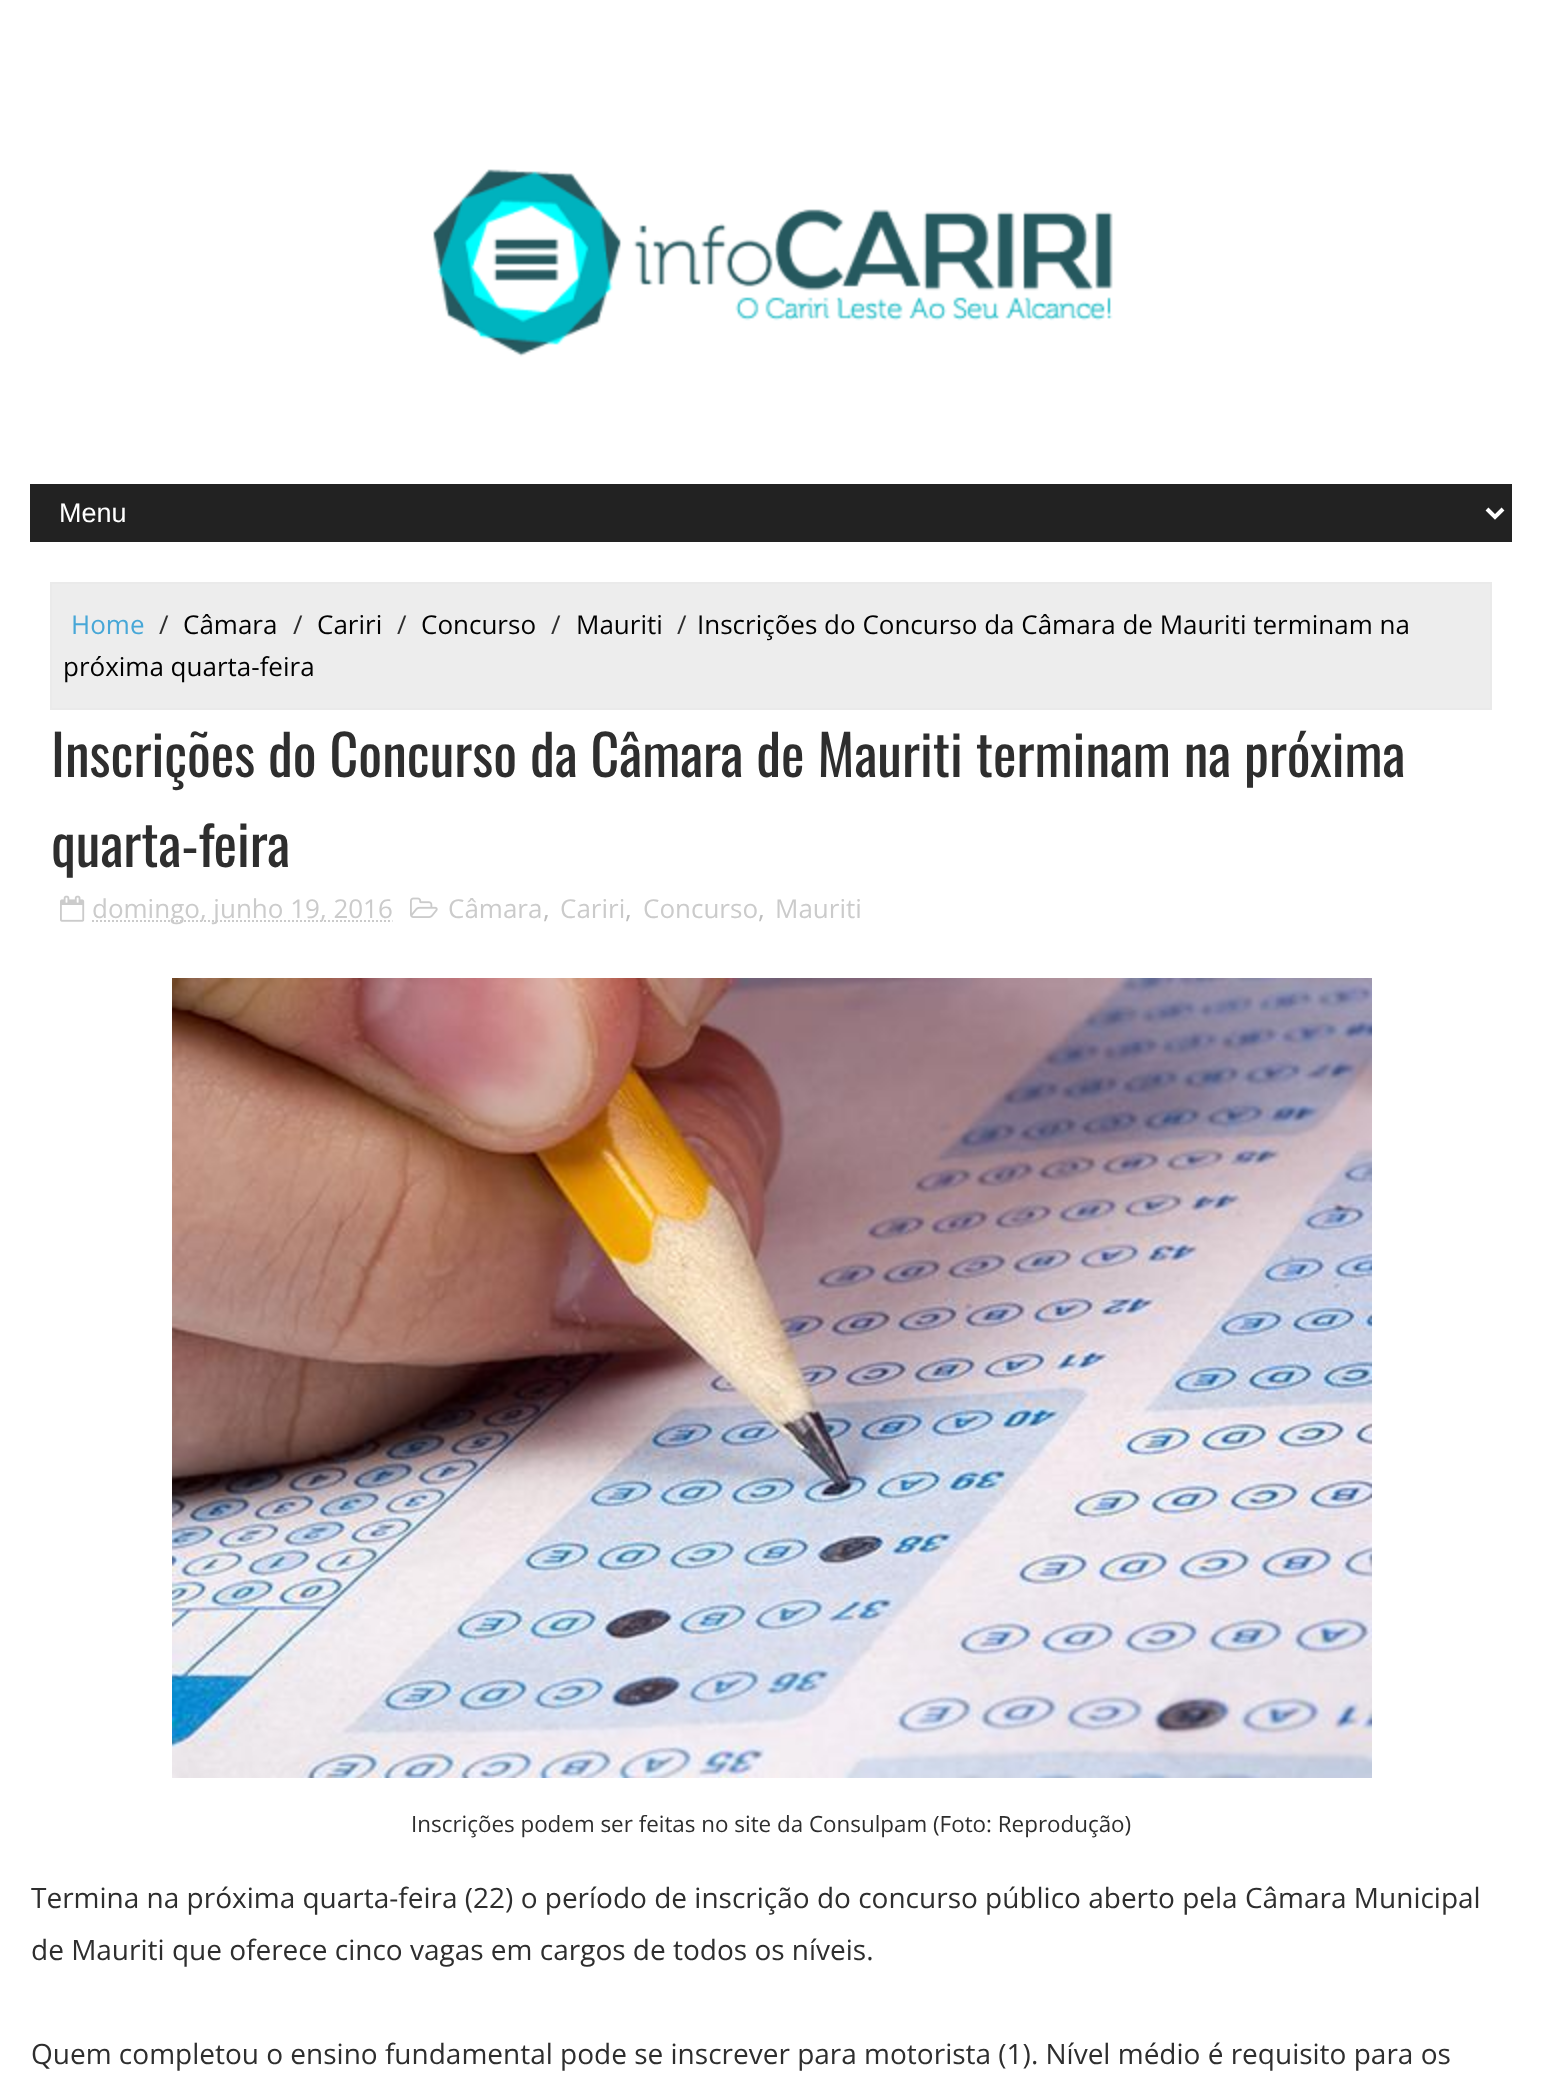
(async () => {
  const canvas = document.querySelector("canvas");
  canvas.width = 1542;
  canvas.height = 2090;
  const ctx = canvas.getContext("2d");
  ctx.miterLimit = 4;
  ctx.fontKerning = "normal";
  async function loadImage(src) {
    const img = new Image();
    img.src = src;
    await img.decode();
    return img;
  }
  let path;

  ctx.fillStyle = "#ffffff";
  ctx.fillRect(0, 0, 1542, 2090);
  ctx.drawImage(await loadImage("img/1.png"), 433, 169, 680, 188);
  ctx.fillStyle = "#222222";
  ctx.fillRect(30, 484, 1482, 58);
  path = new Path2D("M1487 509L1495 517L1503 509");
  ctx.strokeStyle = "#ffffff";
  ctx.lineWidth = 4;
  ctx.stroke(path);
  ctx.fillStyle = "#ededed";
  ctx.beginPath();
  ctx.rect(51, 583, 1440, 126);
  ctx.fill();
  ctx.strokeStyle = "#eaeaea";
  ctx.lineWidth = 2;
  ctx.stroke();
  ctx.drawImage(await loadImage("img/2.png"), 60, 895, 25, 27);
  path = new Path2D("M92 921H392.5");
  ctx.strokeStyle = "#cbcbcb";
  ctx.setLineDash([2, 2]);
  ctx.stroke(path);
  ctx.drawImage(await loadImage("img/3.png"), 410, 897, 28, 21);
  ctx.drawImage(await loadImage("img/4.png"), 172, 978, 1200, 800);
  ctx.font = "27px Liberation Sans";
  ctx.fillStyle = "#ffffff";
  ctx.fillText("Menu", 59, 522);
  ctx.font = "26px Open Sans";
  ctx.fillStyle = "#47a7d7";
  ctx.fillText("Home", 71, 634);
  ctx.fillStyle = "#2e2e2e";
  ctx.fillText("/", 159, 634);
  ctx.fillStyle = "#010101";
  ctx.fillText("Câmara", 183, 634);
  ctx.fillStyle = "#2e2e2e";
  ctx.fillText("/", 293, 634);
  ctx.fillStyle = "#010101";
  ctx.fillText("Cariri", 317, 634);
  ctx.fillStyle = "#2e2e2e";
  ctx.fillText("/", 397, 634);
  ctx.fillStyle = "#010101";
  ctx.fillText("Concurso", 421, 634);
  ctx.fillStyle = "#2e2e2e";
  ctx.fillText("/", 551, 634);
  ctx.fillStyle = "#010101";
  ctx.fillText("Mauriti", 576, 634);
  ctx.fillStyle = "#2e2e2e";
  ctx.fillText("/", 677, 634);
  ctx.fillStyle = "#010101";
  ctx.fillText("Inscrições do Concurso da Câmara de Mauriti terminam na", 697, 634);
  ctx.fillText("próxima quarta-feira", 63, 676);
  ctx.font = "56px Oswald";
  ctx.fillStyle = "#2e2e2e";
  ctx.fillText("Inscrições do Concurso da Câmara de Mauriti terminam na próxima", 51, 777);
  ctx.fillText("quarta-feira", 51, 867);
  ctx.font = "26px Open Sans";
  ctx.fillStyle = "#cbcbcb";
  ctx.fillText("domingo, junho 19, 2016", 92, 918);
  ctx.fillText("Câmara", 448, 918);
  ctx.fillStyle = "#bdbdbd";
  ctx.fillText(",", 543, 918);
  ctx.fillStyle = "#cbcbcb";
  ctx.fillText("Cariri", 560, 918);
  ctx.fillStyle = "#bdbdbd";
  ctx.fillText(",", 625, 918);
  ctx.fillStyle = "#cbcbcb";
  ctx.fillText("Concurso", 643, 918);
  ctx.fillStyle = "#bdbdbd";
  ctx.fillText(",", 758, 918);
  ctx.fillStyle = "#cbcbcb";
  ctx.fillText("Mauriti", 775, 918);
  ctx.font = "22.4px Open Sans";
  ctx.fillStyle = "#2e2e2e";
  ctx.fillText("Inscrições podem ser feitas no site da Consulpam (Foto: Reprodução)", 411, 1832);
  ctx.font = "28px Open Sans";
  for (const [text, x, y] of [
    ["Termina na próxima quarta-feira (22) o período de inscrição do concurso público aberto pela Câmara Municipal", 31, 1908],
    ["de Mauriti que oferece cinco vagas em cargos de todos os níveis.", 31, 1960],
    ["Quem completou o ensino fundamental pode se inscrever para motorista (1). Nível médio é requisito para os", 31, 2064],
  ]) {
    ctx.fillText(text, x, y);
  }
})();
